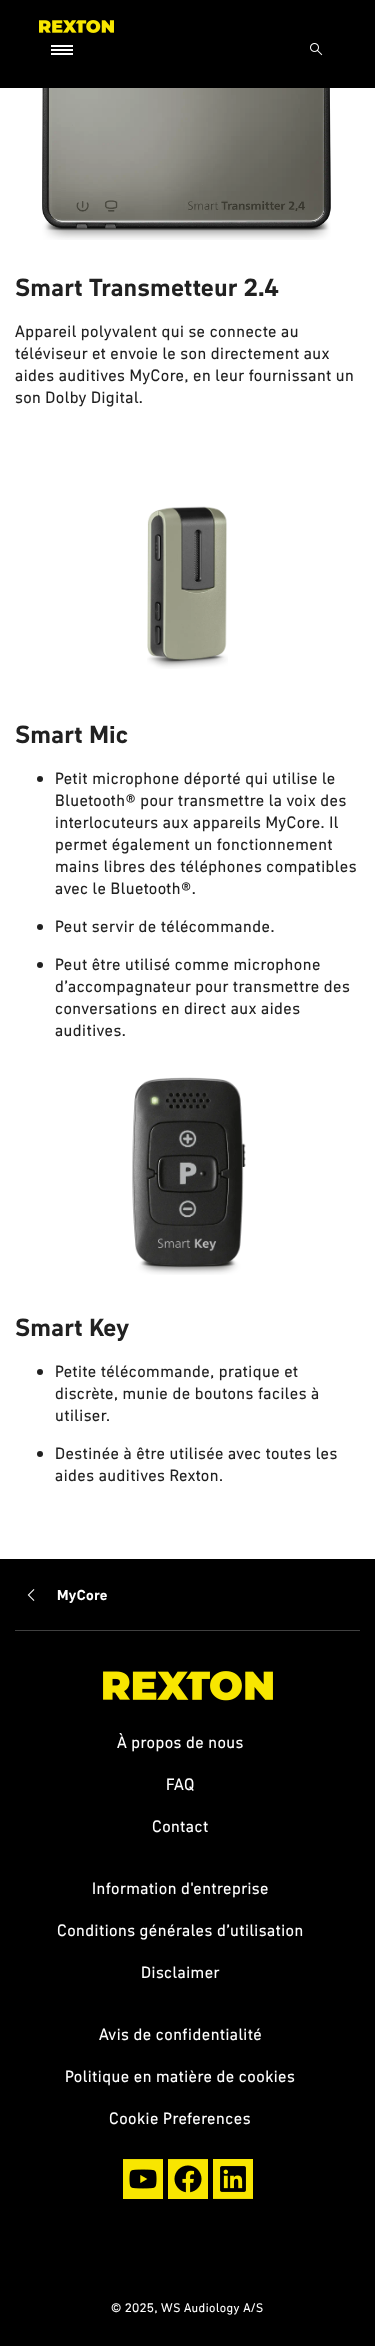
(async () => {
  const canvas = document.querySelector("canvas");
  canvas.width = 375;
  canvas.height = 2346;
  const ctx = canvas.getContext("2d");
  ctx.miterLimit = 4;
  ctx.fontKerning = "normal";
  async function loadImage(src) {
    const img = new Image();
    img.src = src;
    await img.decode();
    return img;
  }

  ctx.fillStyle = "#000000";
  ctx.fillRect(0, 0, 375, 2346);
  ctx.drawImage(await loadImage("img/1.png"), 39, 20, 75, 13);
  for (const [x, y, w, h, color] of [
    [51, 49, 22, 2, "#ffffff"],
    [51, 45, 22, 2, "#ffffff"],
    [51, 53, 22, 2, "#ffffff"],
  ]) {
    ctx.fillStyle = color;
    ctx.fillRect(x, y, w, h);
  }
  ctx.drawImage(await loadImage("img/2.png"), 310, 43, 13, 13);
  ctx.fillRect(0, 88, 375, 1471);
  ctx.drawImage(await loadImage("img/3.png"), 42, 88, 289, 152);
  ctx.drawImage(await loadImage("img/4.png"), 147, 506, 81, 163);
  ctx.fillStyle = "#212121";
  ctx.beginPath();
  ctx.arc(40, 779, 3, 0, Math.PI * 2);
  ctx.fill();
  ctx.beginPath();
  ctx.arc(40, 927, 3, 0, Math.PI * 2);
  ctx.fill();
  ctx.beginPath();
  ctx.arc(40, 965, 3, 0, Math.PI * 2);
  ctx.fill();
  ctx.drawImage(await loadImage("img/5.png"), 132, 1077, 114, 198);
  ctx.beginPath();
  ctx.arc(40, 1372, 3, 0, Math.PI * 2);
  ctx.fill();
  ctx.beginPath();
  ctx.arc(40, 1454, 3, 0, Math.PI * 2);
  ctx.fill();
  ctx.fillStyle = "#404040";
  ctx.fillRect(15, 1630, 345, 1);
  ctx.drawImage(await loadImage("img/6.png"), 27, 1589, 8, 12);
  ctx.drawImage(await loadImage("img/7.png"), 103, 1671, 170, 30);
  ctx.drawImage(await loadImage("img/8.png"), 123, 2159, 40, 40);
  ctx.drawImage(await loadImage("img/9.png"), 168, 2159, 40, 40);
  ctx.drawImage(await loadImage("img/10.png"), 213, 2159, 40, 40);
  ctx.letterSpacing = "0.5px";
  ctx.font = "bold 24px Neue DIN";
  ctx.fillStyle = "#212121";
  ctx.fillText("Smart Transmetteur 2.4", 15, 296);
  ctx.font = "16px Neue DIN";
  for (const [text, x, y] of [
    ["Appareil polyvalent qui se connecte au", 15, 337],
    ["téléviseur et envoie le son directement aux", 15, 359],
    ["aides auditives MyCore, en leur fournissant un", 15, 381],
    ["son Dolby Digital.", 15, 403],
  ]) {
    ctx.fillText(text, x, y);
  }
  ctx.font = "bold 24px Neue DIN";
  ctx.fillText("Smart Mic", 15, 743);
  ctx.font = "16px Neue DIN";
  for (const [text, x, y] of [
    ["Petit microphone déporté qui utilise le", 55, 784],
    ["Bluetooth® pour transmettre la voix des", 55, 806],
    ["interlocuteurs aux appareils MyCore. Il", 55, 828],
    ["permet également un fonctionnement", 55, 850],
    ["mains libres des téléphones compatibles", 55, 872],
    ["avec le Bluetooth®.", 55, 894],
    ["Peut servir de télécommande.", 55, 932],
    ["Peut être utilisé comme microphone", 55, 970],
    ["d’accompagnateur pour transmettre des", 55, 992],
    ["conversations en direct aux aides", 55, 1014],
    ["auditives.", 55, 1036],
  ]) {
    ctx.fillText(text, x, y);
  }
  ctx.font = "bold 24px Neue DIN";
  ctx.fillText("Smart Key", 15, 1336);
  ctx.font = "16px Neue DIN";
  for (const [text, x, y] of [
    ["Petite télécommande, pratique et", 55, 1377],
    ["discrète, munie de boutons faciles à", 55, 1399],
    ["utiliser.", 55, 1421],
    ["Destinée à être utilisée avec toutes les", 55, 1459],
    ["aides auditives Rexton.", 55, 1481],
  ]) {
    ctx.fillText(text, x, y);
  }
  ctx.font = "bold 14px Neue DIN";
  ctx.fillStyle = "#ffffff";
  ctx.fillText("MyCore", 57, 1600);
  ctx.font = "16px Neue DIN";
  for (const [text, x, y] of [
    ["À propos de nous", 117, 1748],
    ["FAQ", 166, 1790],
    ["Contact", 152, 1832],
    ["Information d'entreprise", 92, 1894],
    ["Conditions générales d’utilisation", 57, 1936],
    ["Disclaimer", 141, 1978],
    ["Avis de confidentialité", 99, 2040],
    ["Politique en matière de cookies", 65, 2082],
    ["Cookie Preferences", 109, 2124],
  ]) {
    ctx.fillText(text, x, y);
  }
  ctx.font = "12px Neue DIN";
  ctx.fillText("© 2025, WS Audiology A/S", 111, 2312);
})();
